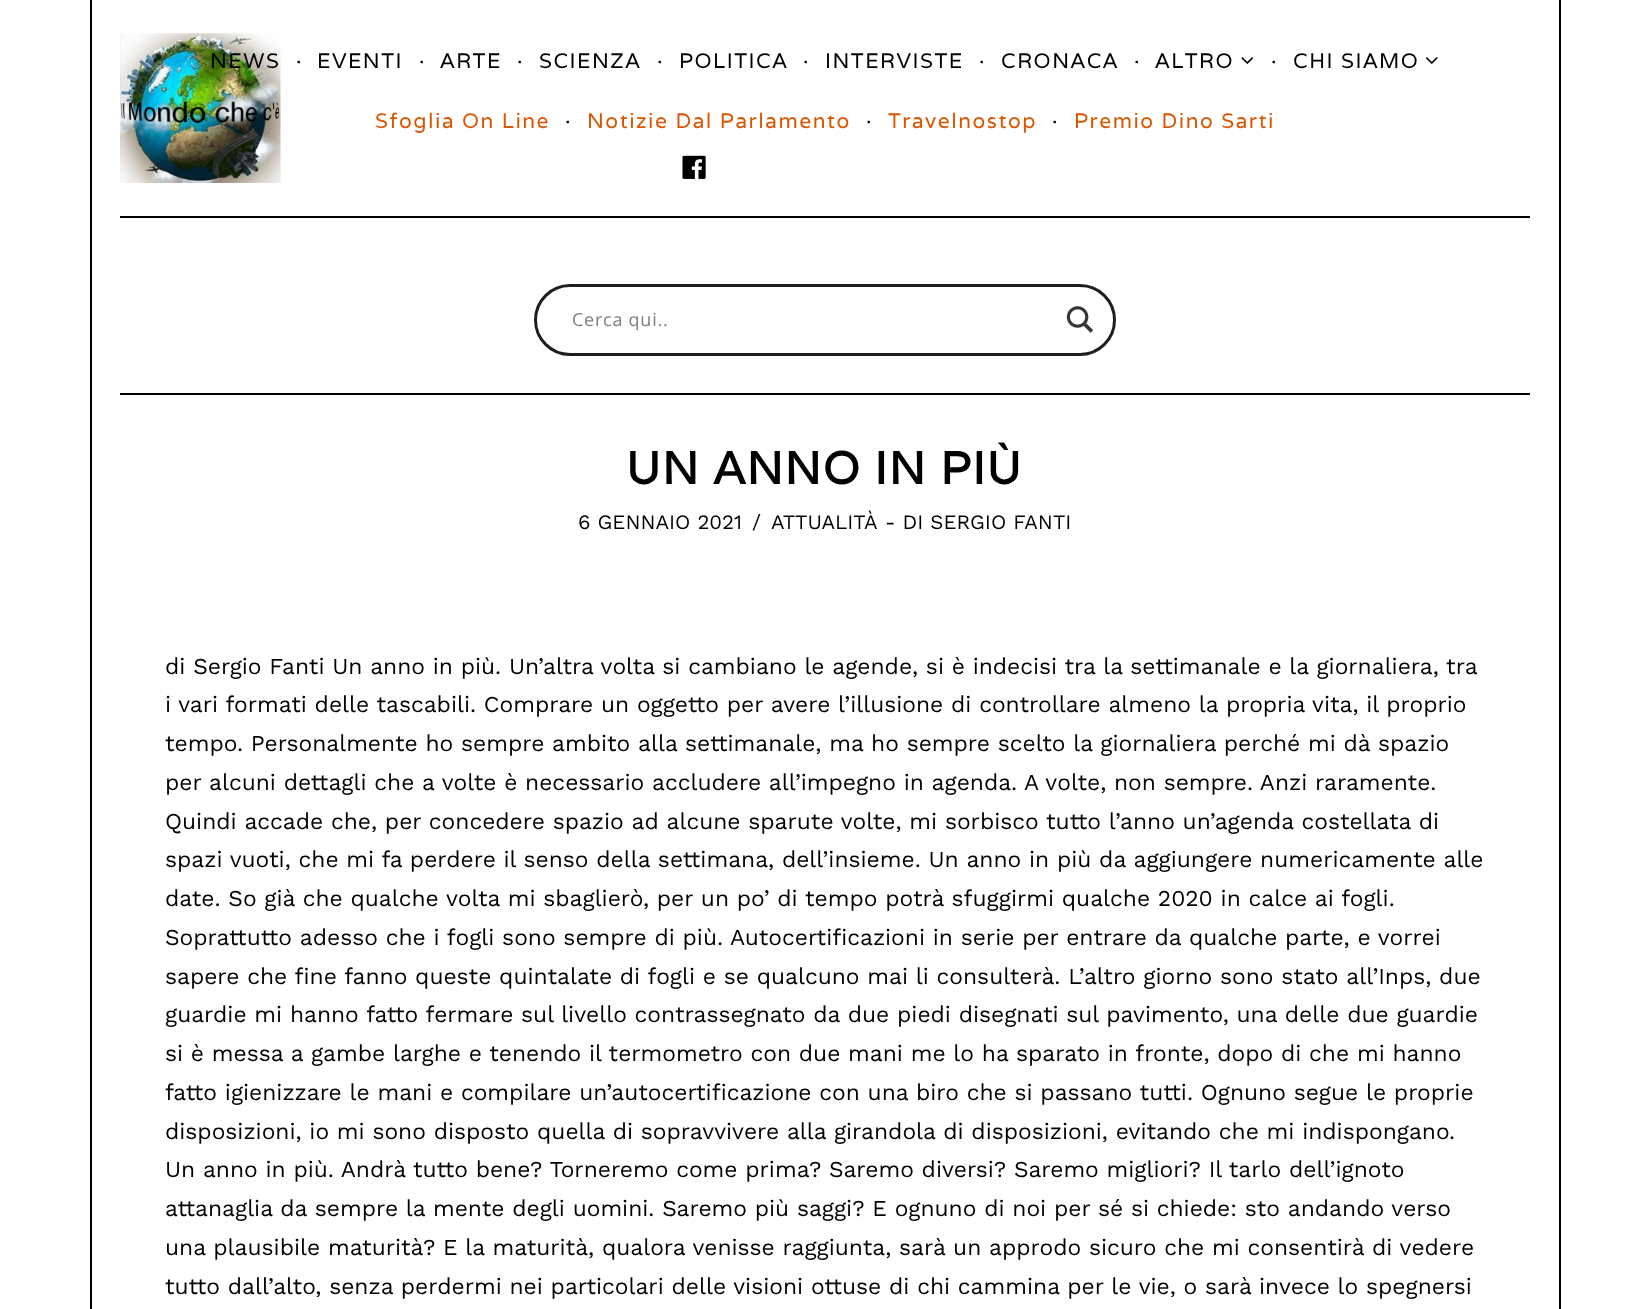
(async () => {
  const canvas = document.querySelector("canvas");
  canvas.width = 1649;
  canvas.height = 1309;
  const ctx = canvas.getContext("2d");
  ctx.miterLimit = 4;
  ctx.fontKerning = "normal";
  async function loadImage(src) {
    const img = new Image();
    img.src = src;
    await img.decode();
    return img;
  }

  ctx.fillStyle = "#ffffff";
  ctx.fillRect(0, 0, 1649, 1309);
  for (const [x, y, w, h, color] of [
    [1559, 0, 2, 1309, "#000000"],
    [90, 0, 2, 1309, "#000000"],
    [120, 216, 1410, 2, "#000000"],
  ]) {
    ctx.fillStyle = color;
    ctx.fillRect(x, y, w, h);
  }
  ctx.drawImage(await loadImage("img/1.png"), 120, 33, 161, 150);
  ctx.drawImage(await loadImage("img/2.png"), 1241, 57, 12, 7);
  ctx.drawImage(await loadImage("img/3.png"), 1426, 57, 12, 7);
  ctx.drawImage(await loadImage("img/4.png"), 682, 155, 24, 24);
  ctx.beginPath();
  ctx.roundRect(535.5, 285.5, 579, 69, 34.5);
  ctx.strokeStyle = "#1e1e1e";
  ctx.lineWidth = 3;
  ctx.stroke();
  ctx.drawImage(await loadImage("img/5.png"), 1066, 306, 28, 27);
  ctx.fillRect(120, 393, 1410, 2);
  ctx.letterSpacing = "1.5px";
  ctx.font = "21px Varela";
  for (const [text, x, y] of [
    ["NEWS", 210, 68],
    ["·", 296, 68],
    ["EVENTI", 317, 68],
    ["·", 419, 68],
    ["ARTE", 440, 68],
    ["·", 517, 68],
    ["SCIENZA", 539, 68],
    ["·", 657, 68],
    ["POLITICA", 679, 68],
    ["·", 803, 68],
    ["INTERVISTE", 825, 68],
    ["·", 979, 68],
    ["CRONACA", 1001, 68],
    ["·", 1134, 68],
    ["ALTRO", 1155, 68],
    ["·", 1271, 68],
    ["CHI SIAMO", 1293, 68],
  ]) {
    ctx.fillText(text, x, y);
  }
  ctx.fillStyle = "#dd5500";
  ctx.fillText("Sfoglia On Line", 375, 128);
  ctx.fillStyle = "#000000";
  ctx.fillText("·", 565, 128);
  ctx.fillStyle = "#dd5500";
  ctx.fillText("Notizie Dal Parlamento", 587, 128);
  ctx.fillStyle = "#000000";
  ctx.fillText("·", 866, 128);
  ctx.fillStyle = "#dd5500";
  ctx.fillText("Travelnostop", 888, 128);
  ctx.fillStyle = "#000000";
  ctx.fillText("·", 1052, 128);
  ctx.fillStyle = "#dd5500";
  ctx.fillText("Premio Dino Sarti", 1074, 128);
  ctx.letterSpacing = "0.75px";
  ctx.font = "18px Open Sans";
  ctx.fillStyle = "#7d7d7d";
  ctx.fillText("Cerca qui..", 572, 326);
  ctx.letterSpacing = "1.5px";
  ctx.font = "bold 45.5px Varela";
  ctx.fillStyle = "#000000";
  ctx.fillText("UN ANNO IN PIÙ", 626, 484);
  ctx.letterSpacing = "0px";
  ctx.font = "20.5px Work Sans";
  for (const [text, x, y] of [
    ["6 GENNAIO 2021", 578, 529],
    ["/", 752, 529],
    ["ATTUALITÀ", 771, 529],
    ["- DI SERGIO FANTI", 885, 529],
  ]) {
    ctx.fillText(text, x, y);
  }
  ctx.font = "22.8px Work Sans";
  for (const [text, x, y] of [
    ["di Sergio Fanti Un anno in più. Un’altra volta si cambiano le agende, si è indecisi tra la settimanale e la giornaliera, tra", 165, 674],
    ["i vari formati delle tascabili. Comprare un oggetto per avere l’illusione di controllare almeno la propria vita, il proprio", 165, 712],
    ["tempo. Personalmente ho sempre ambito alla settimanale, ma ho sempre scelto la giornaliera perché mi dà spazio", 165, 751],
    ["per alcuni dettagli che a volte è necessario accludere all’impegno in agenda. A volte, non sempre. Anzi raramente.", 165, 790],
    ["Quindi accade che, per concedere spazio ad alcune sparute volte, mi sorbisco tutto l’anno un’agenda costellata di", 165, 829],
    ["spazi vuoti, che mi fa perdere il senso della settimana, dell’insieme. Un anno in più da aggiungere numericamente alle", 165, 867],
    ["date. So già che qualche volta mi sbaglierò, per un po’ di tempo potrà sfuggirmi qualche 2020 in calce ai fogli.", 165, 906],
    ["Soprattutto adesso che i fogli sono sempre di più. Autocertificazioni in serie per entrare da qualche parte, e vorrei", 165, 945],
    ["sapere che fine fanno queste quintalate di fogli e se qualcuno mai li consulterà. L’altro giorno sono stato all’Inps, due", 165, 984],
    ["guardie mi hanno fatto fermare sul livello contrassegnato da due piedi disegnati sul pavimento, una delle due guardie", 165, 1022],
    ["si è messa a gambe larghe e tenendo il termometro con due mani me lo ha sparato in fronte, dopo di che mi hanno", 165, 1061],
    ["fatto igienizzare le mani e compilare un’autocertificazione con una biro che si passano tutti. Ognuno segue le proprie", 165, 1100],
    ["disposizioni, io mi sono disposto quella di sopravvivere alla girandola di disposizioni, evitando che mi indispongano.", 165, 1139],
    ["Un anno in più. Andrà tutto bene? Torneremo come prima? Saremo diversi? Saremo migliori? Il tarlo dell’ignoto", 165, 1177],
    ["attanaglia da sempre la mente degli uomini. Saremo più saggi? E ognuno di noi per sé si chiede: sto andando verso", 165, 1216],
    ["una plausibile maturità? E la maturità, qualora venisse raggiunta, sarà un approdo sicuro che mi consentirà di vedere", 165, 1255],
    ["tutto dall’alto, senza perdermi nei particolari delle visioni ottuse di chi cammina per le vie, o sarà invece lo spegnersi", 165, 1294],
  ]) {
    ctx.fillText(text, x, y);
  }
})();
